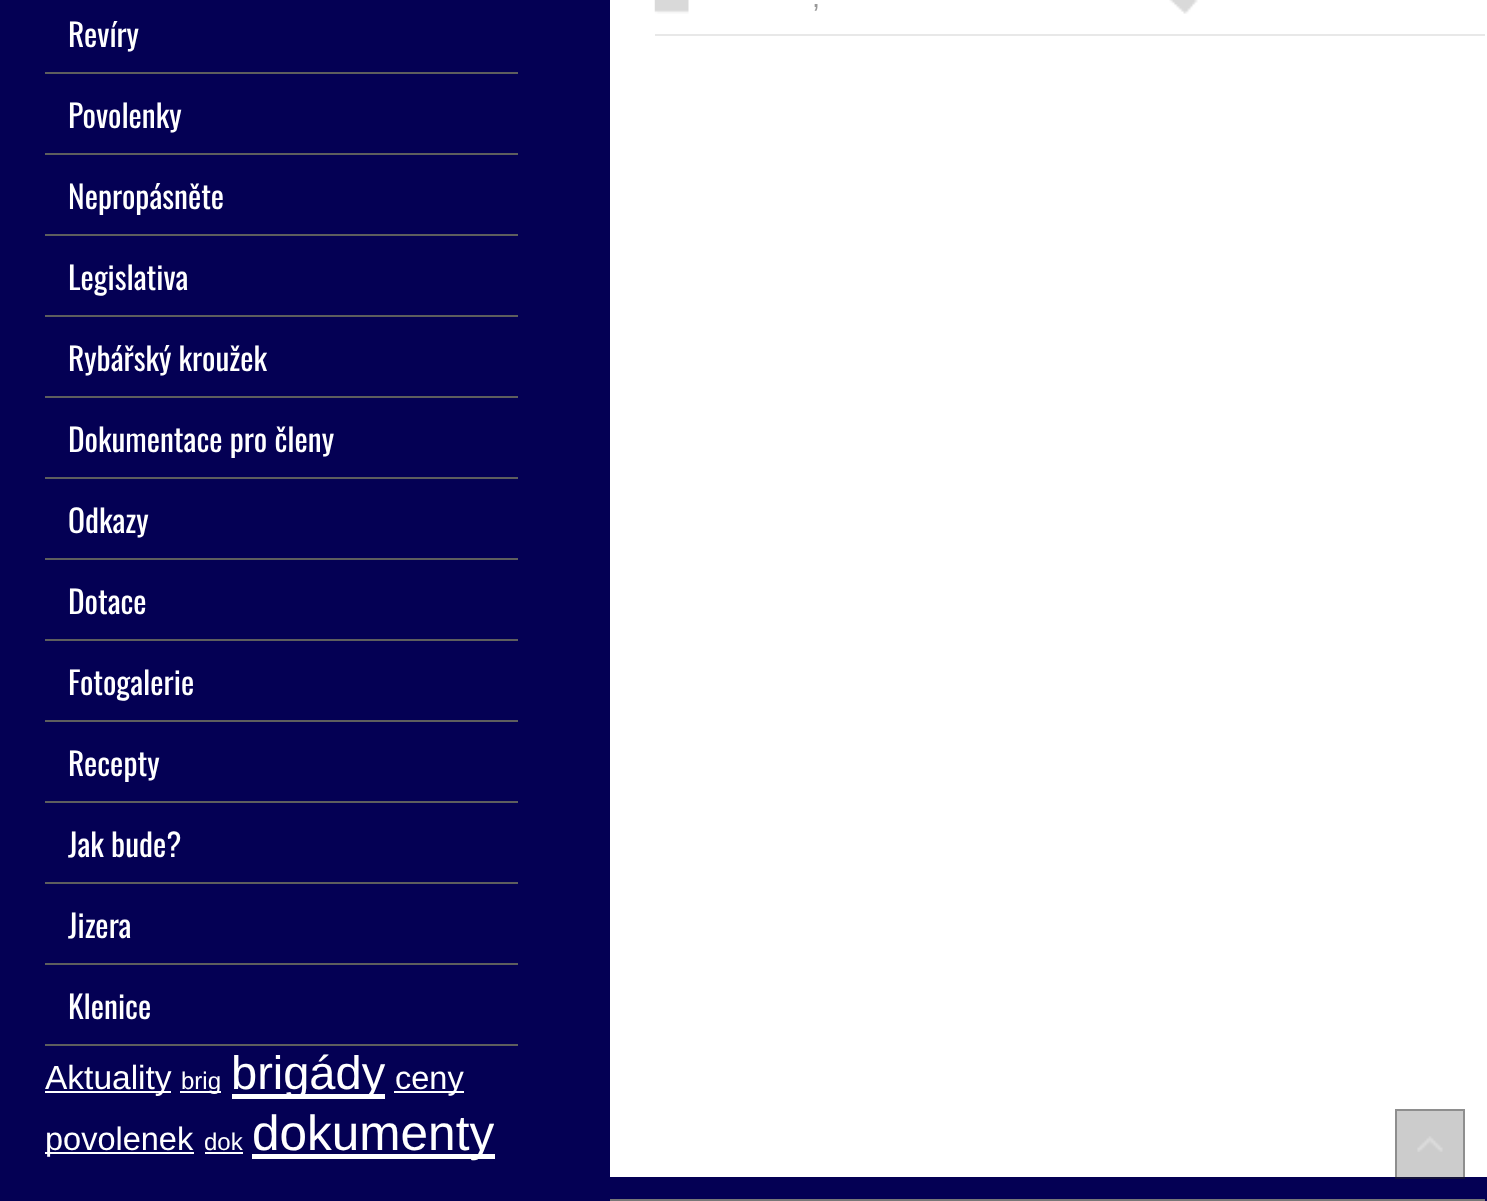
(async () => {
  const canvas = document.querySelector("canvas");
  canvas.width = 1487;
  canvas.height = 1201;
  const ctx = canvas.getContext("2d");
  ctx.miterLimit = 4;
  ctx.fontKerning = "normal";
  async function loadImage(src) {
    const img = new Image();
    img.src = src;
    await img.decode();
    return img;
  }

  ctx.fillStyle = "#040054";
  ctx.fillRect(0, 0, 1487, 1201);
  for (const [x, y, w, h, color] of [
    [1395, 1177, 70, 2, "#1c1a54"],
    [610, 0, 877, 1177, "#ffffff"],
    [1395, 1109, 70, 68, "#cccccc"],
    [655, 34, 830, 2, "#e8e8e8"],
  ]) {
    ctx.fillStyle = color;
    ctx.fillRect(x, y, w, h);
  }
  ctx.drawImage(await loadImage("img/1.png"), 654, 0, 35, 14);
  ctx.drawImage(await loadImage("img/2.png"), 1169, 0, 29, 14);
  for (const [x, y, w, h, color] of [
    [610, 1199, 875, 2, "#777777"],
    [45, 72, 473, 2, "#5e5e5e"],
    [45, 153, 473, 2, "#5e5e5e"],
    [45, 234, 473, 2, "#5e5e5e"],
    [45, 315, 473, 2, "#5e5e5e"],
    [45, 396, 473, 2, "#5e5e5e"],
    [45, 477, 473, 2, "#5e5e5e"],
    [45, 558, 473, 2, "#5e5e5e"],
    [45, 639, 473, 2, "#5e5e5e"],
    [45, 720, 473, 2, "#5e5e5e"],
    [45, 801, 473, 2, "#5e5e5e"],
    [45, 882, 473, 2, "#5e5e5e"],
    [45, 963, 473, 2, "#5e5e5e"],
    [45, 1044, 473, 2, "#5e5e5e"],
    [45, 1091, 126, 2, "#ffffff"],
    [180, 1091, 41, 2, "#ffffff"],
    [232, 1094, 153, 5, "#ffffff"],
    [394, 1091, 70, 2, "#ffffff"],
    [45, 1152, 149, 2, "#ffffff"],
    [205, 1152, 38, 2, "#ffffff"],
    [252, 1154, 243, 5, "#ffffff"],
  ]) {
    ctx.fillStyle = color;
    ctx.fillRect(x, y, w, h);
  }
  ctx.drawImage(await loadImage("img/3.png"), 1417, 1136, 26, 16);
  ctx.strokeStyle = "rgba(0, 0, 0, 0.3)";
  ctx.lineWidth = 2;
  ctx.strokeRect(1396, 1110, 68, 68);
  ctx.font = "29px Liberation Sans";
  ctx.fillStyle = "#999999";
  ctx.fillText(",", 812, 7);
  ctx.font = "31.5px Oswald";
  ctx.fillStyle = "#ffffff";
  for (const [text, x, y] of [
    ["Revíry", 68, 47],
    ["Povolenky", 68, 128],
    ["Nepropásněte", 68, 209],
    ["Legislativa", 68, 290],
    ["Rybářský kroužek", 68, 371],
    ["Dokumentace pro členy", 68, 452],
    ["Odkazy", 68, 533],
    ["Dotace", 68, 614],
    ["Fotogalerie", 68, 695],
    ["Recepty", 68, 776],
    ["Jak bude?", 68, 857],
    ["Jizera", 68, 938],
    ["Klenice", 68, 1019],
  ]) {
    ctx.fillText(text, x, y);
  }
  ctx.font = "33.5px Liberation Sans";
  ctx.fillText("Aktuality", 45, 1089);
  ctx.font = "24px Liberation Sans";
  ctx.fillText("brig", 181, 1089);
  ctx.font = "47px Liberation Sans";
  ctx.fillText("brigády", 231, 1089);
  ctx.font = "32.5px Liberation Sans";
  ctx.fillText("ceny", 395, 1089);
  ctx.fillText("povolenek", 45, 1150);
  ctx.font = "24px Liberation Sans";
  ctx.fillText("dok", 204, 1150);
  ctx.font = "49.5px Liberation Sans";
  ctx.fillText("dokumenty", 252, 1150);
})();
